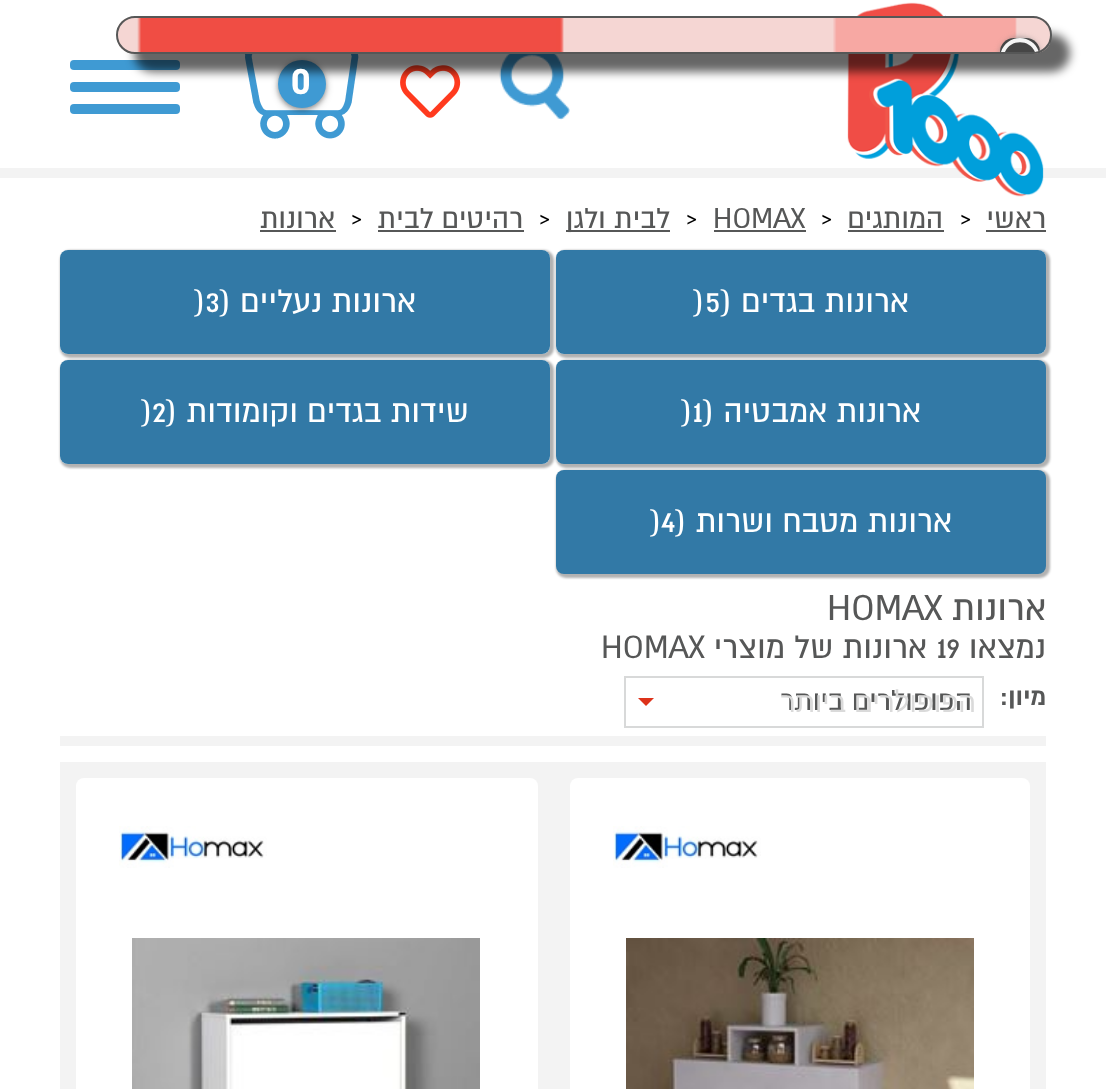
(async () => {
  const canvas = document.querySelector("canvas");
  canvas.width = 1106;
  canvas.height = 1089;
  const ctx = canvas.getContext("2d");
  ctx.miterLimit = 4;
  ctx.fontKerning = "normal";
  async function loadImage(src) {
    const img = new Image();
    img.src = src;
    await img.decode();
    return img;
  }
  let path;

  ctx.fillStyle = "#ffffff";
  ctx.fillRect(0, 0, 1106, 1089);
  ctx.fillStyle = "#f3f3f3";
  ctx.fillRect(0, 168, 1106, 10);
  ctx.drawImage(await loadImage("img/2.png"), 847, 2, 197, 195);
  ctx.drawImage(await loadImage("img/3.png"), 499, 54, 71, 66);
  ctx.drawImage(await loadImage("img/4.png"), 400, 65, 61, 53);
  ctx.drawImage(await loadImage("img/5.png"), 244, 54, 115, 85);
  ctx.fillStyle = "rgba(0, 0, 0, 0.15)";
  ctx.filter = "blur(3px)";
  ctx.beginPath();
  ctx.roundRect(276, 60, 52, 52, 26);
  ctx.fill();
  ctx.filter = "none";
  ctx.fillStyle = "rgba(0, 0, 0, 0.3)";
  ctx.filter = "blur(2px)";
  ctx.beginPath();
  ctx.roundRect(278, 62, 48, 48, 24);
  ctx.fill();
  ctx.filter = "none";
  ctx.fillStyle = "#3f9ad3";
  ctx.beginPath();
  ctx.arc(302, 84, 24, 0, Math.PI * 2);
  ctx.fill();
  ctx.beginPath();
  ctx.roundRect(70, 60, 110, 10, 4);
  ctx.fill();
  ctx.beginPath();
  ctx.roundRect(70, 82, 110, 10, 4);
  ctx.fill();
  ctx.fillStyle = "rgba(0, 0, 0, 0.6)";
  ctx.filter = "blur(5px)";
  ctx.beginPath();
  ctx.roundRect(134, 34, 936, 38, 19);
  ctx.fill();
  ctx.filter = "none";
  ctx.drawImage(await loadImage("img/1.png"), 118, 18, 932, 36);
  ctx.beginPath();
  ctx.roundRect(117, 17, 934, 36, 18);
  ctx.strokeStyle = "#565757";
  ctx.lineWidth = 2;
  ctx.stroke();
  ctx.save();
  ctx.beginPath();
  ctx.roundRect(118, 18, 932, 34, 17);
  ctx.clip();
  ctx.fillStyle = "#808080";
  ctx.filter = "blur(3px)";
  ctx.beginPath();
  ctx.roundRect(1000, 38, 40, 40, 20);
  ctx.fill();
  ctx.filter = "none";
  ctx.restore();
  ctx.save();
  ctx.beginPath();
  ctx.roundRect(118, 18, 932, 34, 17);
  ctx.clip();
  ctx.fillStyle = "#464646";
  ctx.beginPath();
  ctx.roundRect(1000, 38, 40, 14, [20, 20, 0, 0]);
  ctx.fill();
  ctx.restore();
  ctx.fillStyle = "#f5f5f5";
  path = new Path2D("M1020 38C1011 38 1003.5 44 1001 52H1005C1010.5 39 1029.5 39 1035 52L1038.5 51C1036 43.5 1028.5 38 1020 38Z");
  ctx.fill(path);
  ctx.fillStyle = "#3f9ad3";
  ctx.beginPath();
  ctx.roundRect(70, 104, 110, 10, 4);
  ctx.fill();
  for (const [x, y, w, h, color] of [
    [986, 230, 60, 2, "#565757"],
    [848, 230, 96, 2, "#565757"],
    [714, 230, 92, 2, "#565757"],
    [566, 230, 104, 2, "#565757"],
    [378, 230, 146, 2, "#565757"],
    [260, 230, 76, 2, "#565757"],
  ]) {
    ctx.fillStyle = color;
    ctx.fillRect(x, y, w, h);
  }
  ctx.save();
  path = new Path2D("M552 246H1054V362H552ZM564 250H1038C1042.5 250 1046 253.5 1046 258V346C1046 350.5 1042.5 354 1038 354H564C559.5 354 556 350.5 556 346V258C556 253.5 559.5 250 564 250Z");
  ctx.clip(path, "evenodd");
  ctx.fillStyle = "rgba(0, 0, 0, 0.3)";
  ctx.filter = "blur(1px)";
  ctx.beginPath();
  ctx.roundRect(556, 250, 494, 108, 10);
  ctx.fill();
  ctx.filter = "none";
  ctx.restore();
  ctx.fillStyle = "#3279a6";
  ctx.beginPath();
  ctx.roundRect(556, 250, 490, 104, 8);
  ctx.fill();
  ctx.save();
  path = new Path2D("M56 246H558V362H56ZM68 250H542C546.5 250 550 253.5 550 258V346C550 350.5 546.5 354 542 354H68C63.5 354 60 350.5 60 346V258C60 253.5 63.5 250 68 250Z");
  ctx.clip(path, "evenodd");
  ctx.fillStyle = "rgba(0, 0, 0, 0.3)";
  ctx.filter = "blur(1px)";
  ctx.beginPath();
  ctx.roundRect(60, 250, 494, 108, 10);
  ctx.fill();
  ctx.filter = "none";
  ctx.restore();
  ctx.beginPath();
  ctx.roundRect(60, 250, 490, 104, 8);
  ctx.fill();
  ctx.fillStyle = "rgba(0, 0, 0, 0.3)";
  ctx.filter = "blur(1px)";
  ctx.beginPath();
  ctx.roundRect(556, 360, 494, 108, 10);
  ctx.fill();
  ctx.filter = "none";
  ctx.fillStyle = "#3279a6";
  ctx.beginPath();
  ctx.roundRect(556, 360, 490, 104, 8);
  ctx.fill();
  ctx.save();
  path = new Path2D("M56 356H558V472H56ZM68 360H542C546.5 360 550 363.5 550 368V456C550 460.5 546.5 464 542 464H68C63.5 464 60 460.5 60 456V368C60 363.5 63.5 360 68 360Z");
  ctx.clip(path, "evenodd");
  ctx.fillStyle = "rgba(0, 0, 0, 0.3)";
  ctx.filter = "blur(1px)";
  ctx.beginPath();
  ctx.roundRect(60, 360, 494, 108, 10);
  ctx.fill();
  ctx.filter = "none";
  ctx.restore();
  ctx.beginPath();
  ctx.roundRect(60, 360, 490, 104, 8);
  ctx.fill();
  ctx.fillStyle = "rgba(0, 0, 0, 0.3)";
  ctx.filter = "blur(1px)";
  ctx.beginPath();
  ctx.roundRect(556, 470, 494, 108, 10);
  ctx.fill();
  ctx.filter = "none";
  ctx.fillStyle = "#3279a6";
  ctx.beginPath();
  ctx.roundRect(556, 470, 490, 104, 8);
  ctx.fill();
  ctx.fillStyle = "#f3f3f3";
  ctx.fillRect(60, 736, 986, 10);
  ctx.strokeStyle = "#d8d9d9";
  ctx.strokeRect(625, 677, 358, 50);
  ctx.fillStyle = "#dd321a";
  path = new Path2D("M638 698H654L646 706Z");
  ctx.fill(path);
  ctx.fillStyle = "#f3f3f3";
  ctx.fillRect(60, 762, 986, 327);
  ctx.fillStyle = "#ffffff";
  ctx.beginPath();
  ctx.roundRect(570, 778, 460, 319, 8);
  ctx.fill();
  ctx.drawImage(await loadImage("img/6.png"), 613, 826, 148, 42);
  ctx.drawImage(await loadImage("img/7.png"), 626, 938, 348, 151);
  ctx.beginPath();
  ctx.roundRect(76, 778, 462, 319, 8);
  ctx.fill();
  ctx.drawImage(await loadImage("img/6.png"), 119, 826, 148, 42);
  ctx.drawImage(await loadImage("img/8.png"), 132, 938, 348, 151);
  ctx.font = "bold 48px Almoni";
  ctx.fillText("0", 290, 94);
  ctx.direction = "rtl";
  ctx.font = "32px Almoni";
  ctx.fillStyle = "#565757";
  ctx.fillText("ראשי", 1046, 228);
  ctx.direction = "ltr";
  ctx.fillStyle = "#000000";
  ctx.fillText("›", 960, 228);
  ctx.direction = "rtl";
  ctx.fillStyle = "#565757";
  ctx.fillText("המותגים", 943, 228);
  ctx.direction = "ltr";
  ctx.fillStyle = "#000000";
  ctx.fillText("›", 821, 228);
  ctx.fillStyle = "#565757";
  ctx.fillText("HOMAX", 713, 228);
  ctx.fillStyle = "#000000";
  ctx.fillText("›", 686, 228);
  ctx.direction = "rtl";
  ctx.fillStyle = "#565757";
  ctx.fillText("לבית ולגן", 670, 228);
  ctx.direction = "ltr";
  ctx.fillStyle = "#000000";
  ctx.fillText("›", 539, 228);
  ctx.direction = "rtl";
  ctx.fillStyle = "#565757";
  ctx.fillText("רהיטים לבית", 523, 228);
  ctx.direction = "ltr";
  ctx.fillStyle = "#000000";
  ctx.fillText("›", 351, 228);
  ctx.direction = "rtl";
  ctx.fillStyle = "#565757";
  ctx.fillText("ארונות", 335, 228);
  ctx.font = "36px Almoni";
  ctx.fillStyle = "#ffffff";
  ctx.fillText("ארונות בגדים (", 909, 312);
  ctx.direction = "ltr";
  ctx.fillText("5", 705, 312);
  ctx.fillText(")", 693, 312);
  ctx.direction = "rtl";
  ctx.fillText("ארונות נעליים (", 416, 312);
  ctx.direction = "ltr";
  ctx.fillText("3", 205, 312);
  ctx.fillText(")", 194, 312);
  ctx.direction = "rtl";
  ctx.fillText("ארונות אמבטיה (", 921, 422);
  ctx.direction = "ltr";
  ctx.fillText("1", 693, 422);
  ctx.fillText(")", 681, 422);
  ctx.direction = "rtl";
  ctx.fillText("שידות בגדים וקומודות (", 469, 422);
  ctx.direction = "ltr";
  ctx.fillText("2", 152, 422);
  ctx.fillText(")", 141, 422);
  ctx.direction = "rtl";
  ctx.fillText("ארונות מטבח ושרות (", 952, 532);
  ctx.direction = "ltr";
  ctx.fillText("4", 661, 532);
  ctx.fillText(")", 650, 532);
  ctx.direction = "rtl";
  ctx.font = "40px Almoni";
  ctx.fillStyle = "#565757";
  ctx.fillText("ארונות", 1046, 620);
  ctx.direction = "ltr";
  ctx.fillText("HOMAX", 827, 620);
  ctx.direction = "rtl";
  ctx.font = "36px Almoni";
  ctx.fillText("נמצאו", 1046, 658);
  ctx.direction = "ltr";
  ctx.fillText("19", 937, 658);
  ctx.direction = "rtl";
  ctx.fillText("ארונות של מוצרי", 927, 658);
  ctx.direction = "ltr";
  ctx.fillText("HOMAX", 601, 658);
  ctx.direction = "rtl";
  ctx.font = "bold 28px Almoni";
  ctx.fillText("מיון:", 1046, 705);
  ctx.font = "32px Almoni";
  ctx.fillText("הפופולרים ביותר", 972, 710);
  ctx.font = "28px Liberation Sans";
  ctx.fillStyle = "#dadada";
  ctx.fillText("הפופולרים ביותר", 976, 712);
})();
